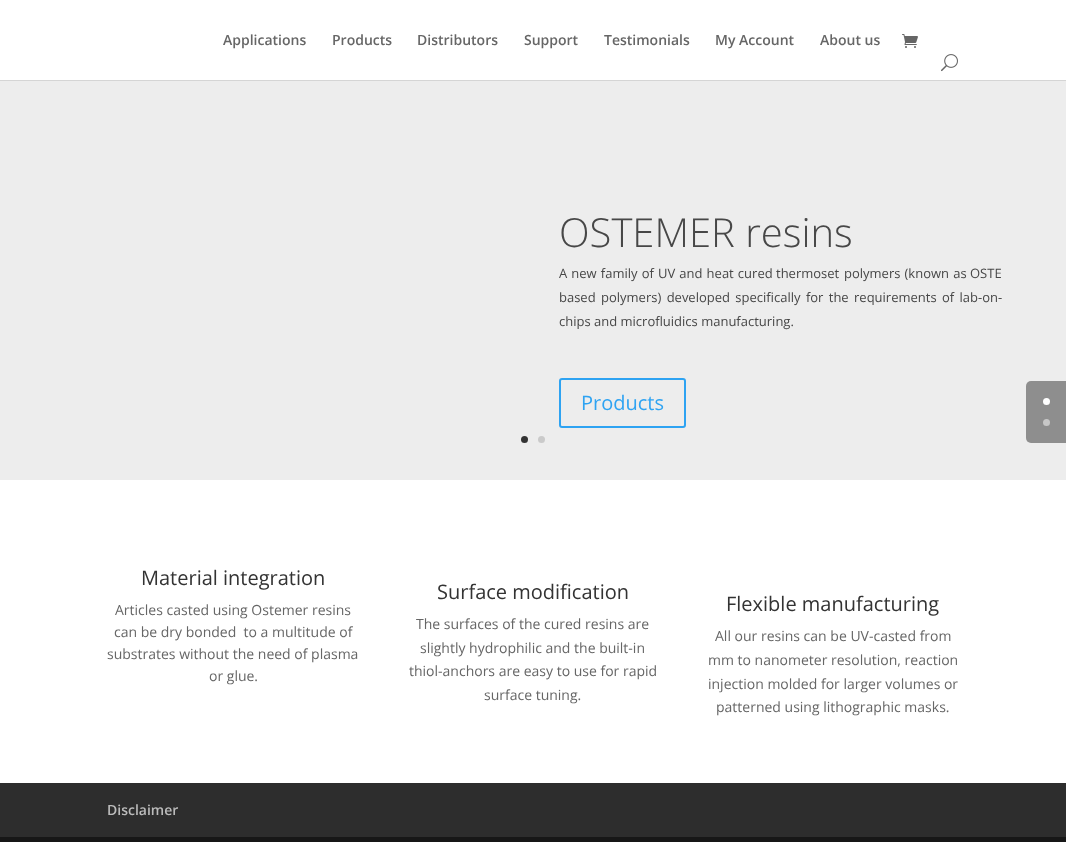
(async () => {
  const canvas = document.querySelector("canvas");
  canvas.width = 1066;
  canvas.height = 842;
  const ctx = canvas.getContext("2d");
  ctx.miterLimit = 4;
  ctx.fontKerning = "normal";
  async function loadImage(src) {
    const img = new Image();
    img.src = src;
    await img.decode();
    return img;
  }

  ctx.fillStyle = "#ffffff";
  ctx.fillRect(0, 0, 1066, 842);
  ctx.fillStyle = "#d5d5d5";
  ctx.fillRect(0, 80, 1066, 1);
  ctx.drawImage(await loadImage("img/1.png"), 902, 34, 16, 14);
  ctx.drawImage(await loadImage("img/2.png"), 941, 54, 17, 18);
  ctx.fillStyle = "#ededed";
  ctx.fillRect(0, 81, 1066, 399);
  ctx.beginPath();
  ctx.roundRect(560, 379, 125, 48, 2);
  ctx.strokeStyle = "#2ea3f2";
  ctx.lineWidth = 2;
  ctx.stroke();
  ctx.fillStyle = "#333333";
  ctx.beginPath();
  ctx.arc(524.5, 439.5, 3.5, 0, Math.PI * 2);
  ctx.fill();
  ctx.fillStyle = "#cacaca";
  ctx.beginPath();
  ctx.arc(541.5, 439.5, 3.5, 0, Math.PI * 2);
  ctx.fill();
  ctx.fillStyle = "#8e8e8e";
  ctx.beginPath();
  ctx.roundRect(1026, 381, 40, 62, [5, 0, 0, 5]);
  ctx.fill();
  ctx.fillStyle = "#ffffff";
  ctx.beginPath();
  ctx.arc(1046.5, 401.5, 3.5, 0, Math.PI * 2);
  ctx.fill();
  ctx.fillStyle = "#c7c7c7";
  ctx.beginPath();
  ctx.arc(1046.5, 422.5, 3.5, 0, Math.PI * 2);
  ctx.fill();
  ctx.fillStyle = "#2d2d2d";
  ctx.fillRect(0, 783, 1066, 54);
  ctx.fillStyle = "#171717";
  ctx.fillRect(0, 837, 1066, 5);
  ctx.font = "600 14px Open Sans";
  ctx.fillStyle = "#666666";
  for (const [text, x, y] of [
    ["Applications", 223, 45],
    ["Products", 332, 45],
    ["Distributors", 417, 45],
    ["Support", 524, 45],
    ["Testimonials", 604, 45],
    ["My Account", 715, 45],
    ["About us", 820, 45],
  ]) {
    ctx.fillText(text, x, y);
  }
  ctx.font = "300 40px Open Sans";
  ctx.fillStyle = "#474747";
  ctx.fillText("OSTEMER resins", 559, 247);
  ctx.wordSpacing = "0.75px";
  ctx.font = "13px Open Sans";
  ctx.fillText("A new family of UV and heat cured", 559, 278);
  ctx.wordSpacing = "0px";
  ctx.fillText("thermoset", 776, 278);
  ctx.wordSpacing = "0.75px";
  ctx.fillText("polymers (known as", 844, 278);
  ctx.wordSpacing = "0px";
  ctx.fillText("OSTE", 970, 278);
  ctx.wordSpacing = "2px";
  ctx.fillText("based polymers) developed specifically for the requirements of lab-on-", 559, 302);
  ctx.wordSpacing = "0px";
  ctx.fillText("chips and microfluidics manufacturing.", 559, 326);
  ctx.font = "20px Open Sans";
  ctx.fillStyle = "#2ea3f2";
  ctx.fillText("Products", 581, 410);
  ctx.fillStyle = "#333333";
  ctx.fillText("Material integration", 141, 585);
  ctx.font = "14px Open Sans";
  ctx.fillStyle = "#666666";
  for (const [text, x, y] of [
    ["Articles casted using Ostemer resins", 115, 615],
    ["can be dry bonded  to a multitude of", 114, 637],
    ["substrates without the need of plasma", 107, 659],
    ["or glue.", 209, 681],
  ]) {
    ctx.fillText(text, x, y);
  }
  ctx.font = "20px Open Sans";
  ctx.fillStyle = "#333333";
  ctx.fillText("Surface modification", 437, 599);
  ctx.font = "14px Open Sans";
  ctx.fillStyle = "#666666";
  for (const [text, x, y] of [
    ["The surfaces of the cured resins are", 416, 629],
    ["slightly hydrophilic and the built-in", 420, 653],
    ["thiol-anchors are easy to use for rapid", 409, 676],
    ["surface tuning.", 484, 700],
  ]) {
    ctx.fillText(text, x, y);
  }
  ctx.font = "20px Open Sans";
  ctx.fillStyle = "#333333";
  ctx.fillText("Flexible manufacturing", 726, 611);
  ctx.font = "14px Open Sans";
  ctx.fillStyle = "#666666";
  for (const [text, x, y] of [
    ["All our resins can be UV-casted from", 715, 641],
    ["mm to nanometer resolution, reaction", 708, 665],
    ["injection molded for larger volumes or", 708, 689],
    ["patterned using lithographic masks.", 716, 712],
  ]) {
    ctx.fillText(text, x, y);
  }
  ctx.font = "600 14px Open Sans";
  ctx.fillStyle = "#bbbbbb";
  ctx.fillText("Disclaimer", 107, 815);
})();
